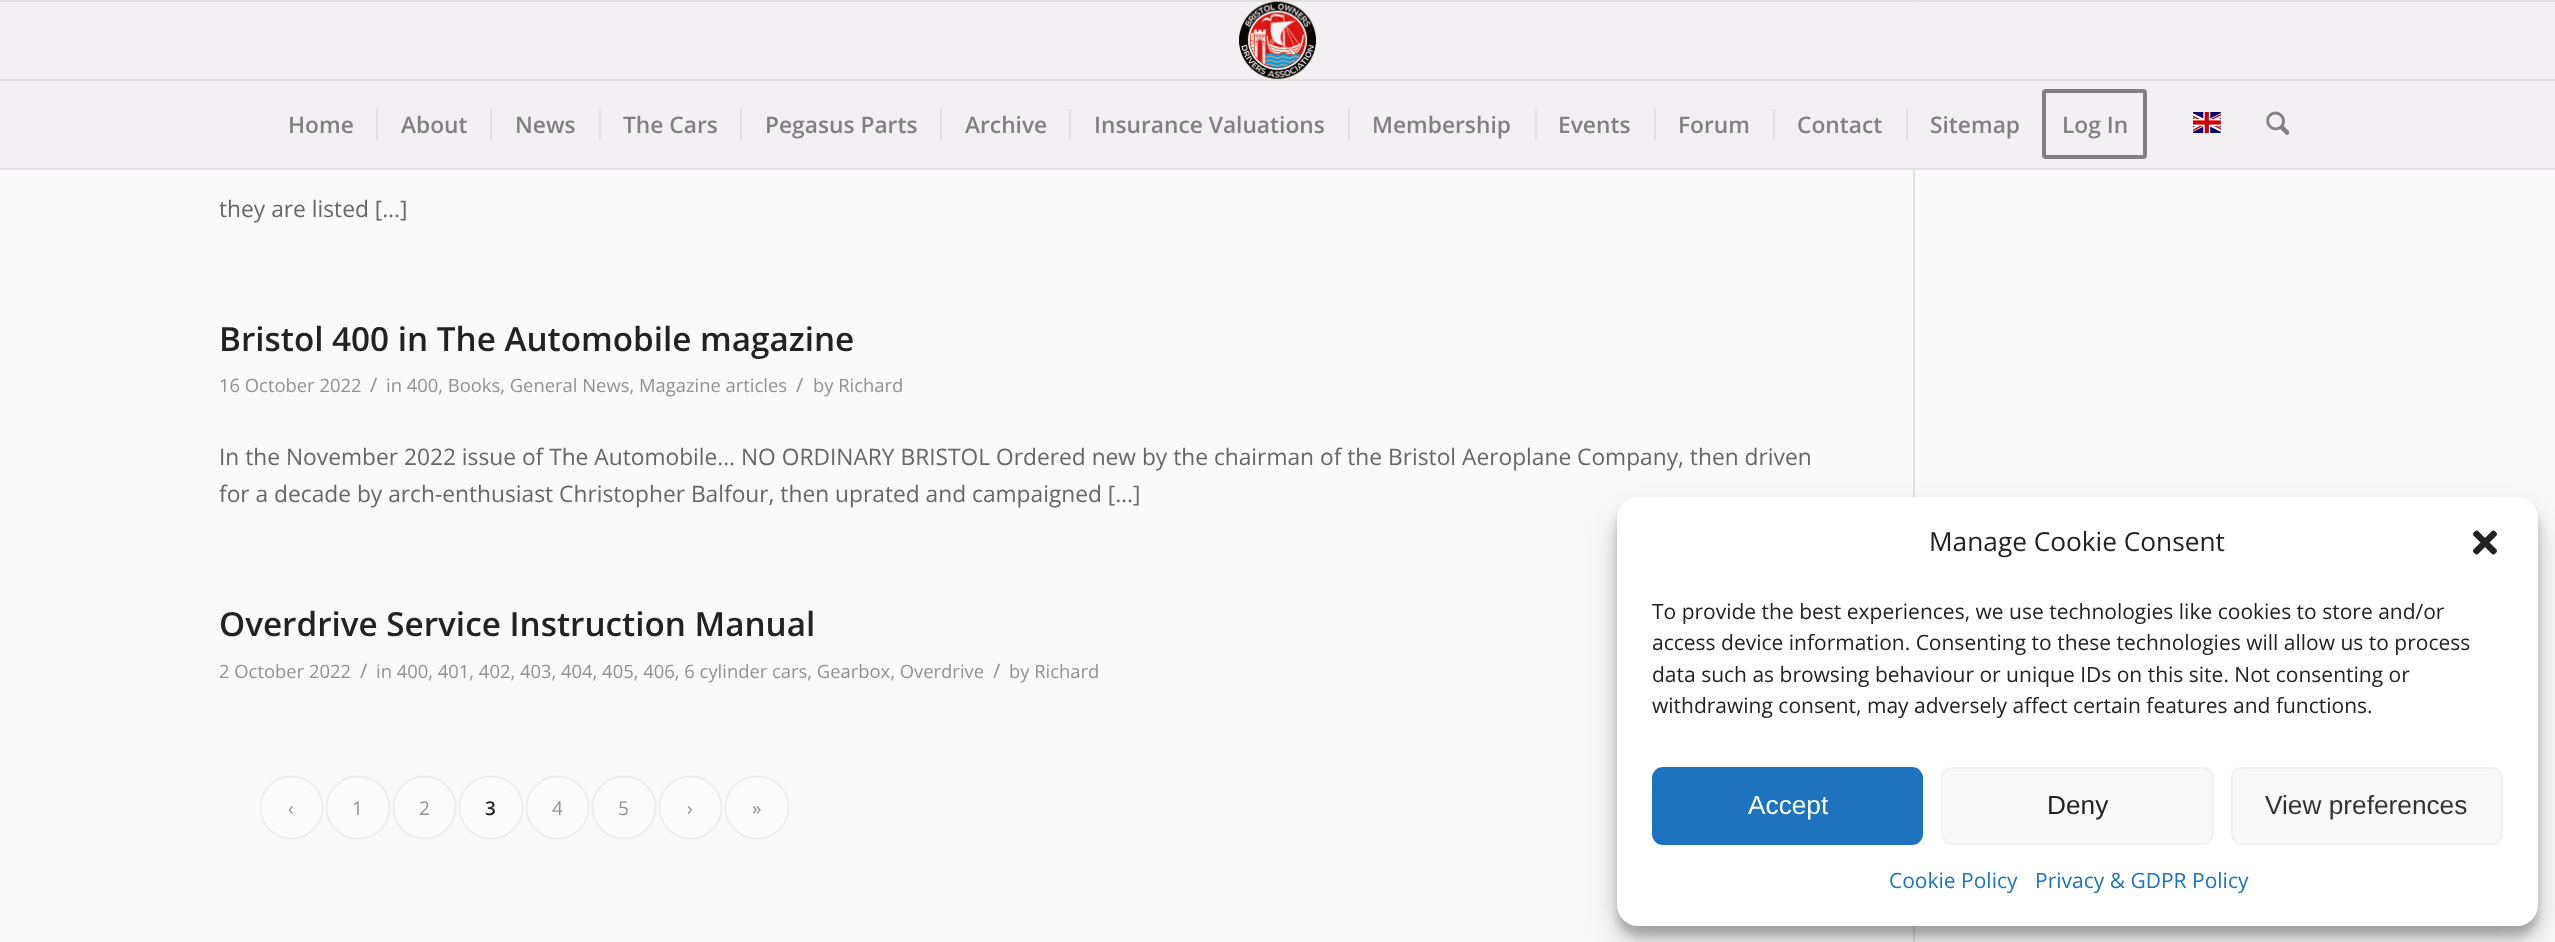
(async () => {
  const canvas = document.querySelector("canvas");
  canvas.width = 2555;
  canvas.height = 942;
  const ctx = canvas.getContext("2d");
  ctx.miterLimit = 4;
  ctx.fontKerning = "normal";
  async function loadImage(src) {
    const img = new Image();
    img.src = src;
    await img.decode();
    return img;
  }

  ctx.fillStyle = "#fafafa";
  ctx.fillRect(0, 0, 2555, 942);
  for (const [x, y, w, h, color] of [
    [1913, 0, 2, 942, "#e1e1e1"],
    [0, 2, 2555, 166, "rgba(242, 239, 242, 0.95)"],
    [0, 0, 2555, 2, "#e1e1e1"],
    [0, 168, 2555, 2, "#e1e1e1"],
  ]) {
    ctx.fillStyle = color;
    ctx.fillRect(x, y, w, h);
  }
  ctx.drawImage(await loadImage("img/1.png"), 1239, 1, 77, 78);
  for (const [x, y, w, h, color] of [
    [0, 79, 2555, 2, "#e1e1e1"],
    [376, 109, 2, 31, "#e1e1e1"],
    [490, 109, 2, 31, "#e1e1e1"],
    [599, 109, 2, 31, "#e1e1e1"],
    [740, 109, 2, 31, "#e1e1e1"],
    [940, 109, 2, 31, "#e1e1e1"],
    [1069, 109, 2, 31, "#e1e1e1"],
    [1348, 109, 2, 31, "#e1e1e1"],
    [1535, 109, 2, 31, "#e1e1e1"],
    [1654, 109, 2, 31, "#e1e1e1"],
    [1773, 109, 2, 31, "#e1e1e1"],
    [1906, 109, 2, 31, "#e1e1e1"],
  ]) {
    ctx.fillStyle = color;
    ctx.fillRect(x, y, w, h);
  }
  ctx.beginPath();
  ctx.roundRect(2044, 91, 101, 66, 2);
  ctx.strokeStyle = "#808080";
  ctx.lineWidth = 4;
  ctx.stroke();
  ctx.drawImage(await loadImage("img/2.png"), 2193, 112, 28, 21);
  ctx.drawImage(await loadImage("img/3.png"), 2266, 111, 23, 25);
  ctx.fillStyle = "rgba(0, 0, 0, 0.2)";
  ctx.filter = "blur(1px)";
  ctx.beginPath();
  ctx.roundRect(261, 777, 61, 61, 30.5);
  ctx.fill();
  ctx.filter = "none";
  ctx.fillStyle = "#fcfcfc";
  ctx.beginPath();
  ctx.arc(291.5, 807.5, 30.5, 0, Math.PI * 2);
  ctx.fill();
  ctx.fillStyle = "rgba(0, 0, 0, 0.2)";
  ctx.filter = "blur(1px)";
  ctx.beginPath();
  ctx.roundRect(327, 777, 62, 61, 30.5);
  ctx.fill();
  ctx.filter = "none";
  ctx.fillStyle = "#fcfcfc";
  ctx.beginPath();
  ctx.roundRect(327, 777, 62, 61, 30.5);
  ctx.fill();
  ctx.fillStyle = "rgba(0, 0, 0, 0.2)";
  ctx.filter = "blur(1px)";
  ctx.beginPath();
  ctx.roundRect(394, 777, 61, 61, 30.5);
  ctx.fill();
  ctx.filter = "none";
  ctx.fillStyle = "#fcfcfc";
  ctx.beginPath();
  ctx.arc(424.5, 807.5, 30.5, 0, Math.PI * 2);
  ctx.fill();
  ctx.fillStyle = "rgba(0, 0, 0, 0.2)";
  ctx.filter = "blur(1px)";
  ctx.beginPath();
  ctx.roundRect(460, 777, 62, 61, 30.5);
  ctx.fill();
  ctx.filter = "none";
  ctx.fillStyle = "#fcfcfc";
  ctx.beginPath();
  ctx.roundRect(460, 777, 62, 61, 30.5);
  ctx.fill();
  ctx.fillStyle = "rgba(0, 0, 0, 0.2)";
  ctx.filter = "blur(1px)";
  ctx.beginPath();
  ctx.roundRect(527, 777, 61, 61, 30.5);
  ctx.fill();
  ctx.filter = "none";
  ctx.fillStyle = "#fcfcfc";
  ctx.beginPath();
  ctx.arc(557.5, 807.5, 30.5, 0, Math.PI * 2);
  ctx.fill();
  ctx.fillStyle = "rgba(0, 0, 0, 0.2)";
  ctx.filter = "blur(1px)";
  ctx.beginPath();
  ctx.roundRect(593, 777, 62, 61, 30.5);
  ctx.fill();
  ctx.filter = "none";
  ctx.fillStyle = "#fcfcfc";
  ctx.beginPath();
  ctx.roundRect(593, 777, 62, 61, 30.5);
  ctx.fill();
  ctx.fillStyle = "rgba(0, 0, 0, 0.2)";
  ctx.filter = "blur(1px)";
  ctx.beginPath();
  ctx.roundRect(660, 777, 61, 61, 30.5);
  ctx.fill();
  ctx.filter = "none";
  ctx.fillStyle = "#fcfcfc";
  ctx.beginPath();
  ctx.arc(690.5, 807.5, 30.5, 0, Math.PI * 2);
  ctx.fill();
  ctx.fillStyle = "rgba(0, 0, 0, 0.2)";
  ctx.filter = "blur(1px)";
  ctx.beginPath();
  ctx.roundRect(726, 777, 62, 61, 30.5);
  ctx.fill();
  ctx.filter = "none";
  ctx.fillStyle = "#fcfcfc";
  ctx.beginPath();
  ctx.roundRect(726, 777, 62, 61, 30.5);
  ctx.fill();
  ctx.fillStyle = "rgba(0, 0, 0, 0.23)";
  ctx.filter = "blur(5px)";
  ctx.beginPath();
  ctx.roundRect(1617, 508, 921, 428, 21);
  ctx.fill();
  ctx.filter = "none";
  ctx.fillStyle = "rgba(0, 0, 0, 0.19)";
  ctx.filter = "blur(17.5px)";
  ctx.beginPath();
  ctx.roundRect(1617, 515, 921, 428, 21);
  ctx.fill();
  ctx.filter = "none";
  ctx.fillStyle = "#ffffff";
  ctx.beginPath();
  ctx.roundRect(1617, 497, 921, 429, 21);
  ctx.fill();
  ctx.drawImage(await loadImage("img/4.png"), 2473, 530, 24, 25);
  ctx.fillStyle = "#1e73be";
  ctx.beginPath();
  ctx.roundRect(1653, 768, 269, 76, 10);
  ctx.fill();
  ctx.strokeStyle = "#1e73be";
  ctx.lineWidth = 2;
  ctx.stroke();
  ctx.fillStyle = "#f9f9f9";
  ctx.beginPath();
  ctx.roundRect(1942, 768, 271, 76, 10);
  ctx.fill();
  ctx.strokeStyle = "#f2f2f2";
  ctx.stroke();
  ctx.beginPath();
  ctx.roundRect(2232, 768, 270, 76, 10);
  ctx.fill();
  ctx.stroke();
  ctx.font = "600 22.75px Open Sans";
  ctx.fillStyle = "#808080";
  for (const [text, x, y] of [
    ["Home", 288, 133],
    ["About", 401, 133],
    ["News", 515, 133],
    ["The Cars", 623, 133],
    ["Pegasus Parts", 765, 133],
    ["Archive", 965, 133],
    ["Insurance Valuations", 1094, 133],
    ["Membership", 1372, 133],
    ["Events", 1558, 133],
    ["Forum", 1678, 133],
    ["Contact", 1797, 133],
    ["Sitemap", 1930, 133],
    ["Log In", 2062, 133],
  ]) {
    ctx.fillText(text, x, y);
  }
  ctx.font = "22.75px Open Sans";
  ctx.fillStyle = "#666666";
  ctx.fillText("they are listed […]", 219, 217);
  ctx.font = "600 33.25px Open Sans";
  ctx.fillStyle = "#222222";
  ctx.fillText("Bristol 400 in The Automobile magazine", 219, 351);
  ctx.font = "18.4px Open Sans";
  ctx.fillStyle = "#919191";
  ctx.fillText("16 October 2022", 219, 392);
  ctx.font = "20px Open Sans";
  ctx.fillText("/", 370, 392);
  ctx.font = "18.4px Open Sans";
  ctx.fillText("in 400, Books, General News, Magazine articles", 386, 392);
  ctx.font = "20px Open Sans";
  ctx.fillText("/", 796, 392);
  ctx.font = "18.4px Open Sans";
  ctx.fillText("by Richard", 813, 392);
  ctx.font = "22.75px Open Sans";
  ctx.fillStyle = "#666666";
  ctx.fillText("In the November 2022 issue of The Automobile… NO ORDINARY BRISTOL Ordered new by the chairman of the Bristol Aeroplane Company, then driven", 219, 465);
  ctx.fillText("for a decade by arch-enthusiast Christopher Balfour, then uprated and campaigned […]", 219, 502);
  ctx.font = "600 33.25px Open Sans";
  ctx.fillStyle = "#222222";
  ctx.fillText("Overdrive Service Instruction Manual", 219, 636);
  ctx.font = "18.4px Open Sans";
  ctx.fillStyle = "#919191";
  ctx.fillText("2 October 2022", 219, 678);
  ctx.font = "20px Open Sans";
  ctx.fillText("/", 360, 678);
  ctx.font = "18.4px Open Sans";
  ctx.fillText("in 400, 401, 402, 403, 404, 405, 406, 6 cylinder cars, Gearbox, Overdrive", 376, 678);
  ctx.font = "20px Open Sans";
  ctx.fillText("/", 993, 678);
  ctx.font = "18.4px Open Sans";
  ctx.fillText("by Richard", 1009, 678);
  ctx.font = "19px Open Sans";
  for (const [text, x, y] of [
    ["‹", 288, 815],
    ["1", 352, 815],
    ["2", 419, 815],
  ]) {
    ctx.fillText(text, x, y);
  }
  ctx.font = "600 19px Open Sans";
  ctx.fillStyle = "#222222";
  ctx.fillText("3", 485, 815);
  ctx.font = "19px Open Sans";
  ctx.fillStyle = "#919191";
  for (const [text, x, y] of [
    ["4", 552, 815],
    ["5", 618, 815],
    ["›", 687, 815],
    ["»", 752, 815],
  ]) {
    ctx.fillText(text, x, y);
  }
  ctx.font = "26.25px Open Sans";
  ctx.fillStyle = "#222222";
  ctx.fillText("Manage Cookie Consent", 1929, 551);
  ctx.font = "21px Open Sans";
  for (const [text, x, y] of [
    ["To provide the best experiences, we use technologies like cookies to store and/or", 1652, 619],
    ["access device information. Consenting to these technologies will allow us to process", 1652, 650],
    ["data such as browsing behaviour or unique IDs on this site. Not consenting or", 1652, 682],
    ["withdrawing consent, may adversely affect certain features and functions.", 1652, 713],
  ]) {
    ctx.fillText(text, x, y);
  }
  ctx.font = "26.25px Liberation Sans";
  ctx.fillStyle = "#ffffff";
  ctx.fillText("Accept", 1748, 814);
  ctx.fillStyle = "#222222";
  ctx.fillText("Deny", 2047, 814);
  ctx.fillStyle = "#333333";
  ctx.fillText("View preferences", 2265, 814);
  ctx.font = "21px Open Sans";
  ctx.fillStyle = "#1e73be";
  ctx.fillText("Cookie Policy", 1889, 888);
  ctx.fillText("Privacy & GDPR Policy", 2035, 888);
})();
